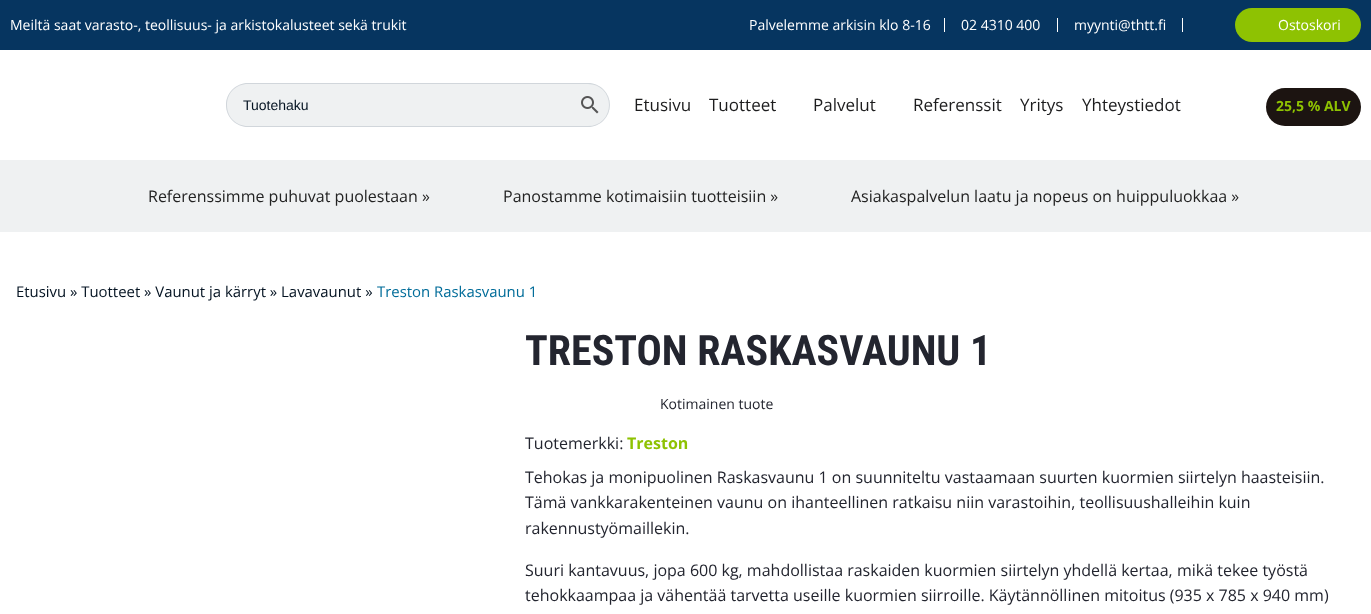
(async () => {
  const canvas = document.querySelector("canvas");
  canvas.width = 1371;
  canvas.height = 614;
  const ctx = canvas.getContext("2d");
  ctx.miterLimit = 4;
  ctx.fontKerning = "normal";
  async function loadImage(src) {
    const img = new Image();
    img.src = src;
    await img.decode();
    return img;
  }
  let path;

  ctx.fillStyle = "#ffffff";
  ctx.fillRect(0, 0, 1371, 614);
  for (const [x, y, w, h, color] of [
    [0, 0, 1371, 50, "#063560"],
    [944, 18, 1, 14, "#ffffff"],
    [1057, 18, 1, 14, "#ffffff"],
    [1182, 18, 1, 14, "#ffffff"],
  ]) {
    ctx.fillStyle = color;
    ctx.fillRect(x, y, w, h);
  }
  ctx.fillStyle = "#8ec202";
  ctx.beginPath();
  ctx.roundRect(1235, 8, 126, 34, 17);
  ctx.fill();
  ctx.fillStyle = "#eff1f2";
  ctx.beginPath();
  ctx.roundRect(568, 83, 42, 44, [0, 22, 22, 0]);
  ctx.fill();
  ctx.fillStyle = "#d1d6db";
  path = new Path2D("M568 83L569 84H588C594 84 599 86 603 90L603.5 89.5C599.5 85.5 594 83 588 83Z");
  ctx.fill(path);
  path = new Path2D("M603.5 89.5C612 98 612 112 603.5 120.5L603 120C611 112 611 98 603 90Z");
  ctx.fill(path);
  path = new Path2D("M588 127C594 127 599.5 124.5 603.5 120.5L603 120C599 124 594 126 588 126H569L568 127Z");
  ctx.fill(path);
  ctx.fillStyle = "#eff1f2";
  ctx.beginPath();
  ctx.roundRect(226, 83, 343, 44, [22, 0, 0, 22]);
  ctx.fill();
  ctx.fillStyle = "#d1d6db";
  path = new Path2D("M248 83H569V127H248C236 127 226 117 226 105C226 93 236 83 248 83ZM248 84H569V126H248C236 126 227 117 227 105C227 93 236 84 248 84Z");
  ctx.fill(path, "evenodd");
  ctx.drawImage(await loadImage("img/1.png"), 581, 96, 18, 18);
  ctx.fillStyle = "#1c1411";
  ctx.beginPath();
  ctx.roundRect(1266, 88, 95, 38, 19);
  ctx.fill();
  ctx.fillStyle = "#eff1f2";
  ctx.fillRect(0, 160, 1371, 72);
  ctx.font = "14px Open Sans";
  ctx.fillStyle = "#ffffff";
  for (const [text, x, y] of [
    ["Meiltä saat varasto-, teollisuus- ja arkistokalusteet sekä trukit", 10, 30],
    ["Palvelemme arkisin klo 8-16", 749, 30],
    ["02 4310 400", 961, 30],
    ["myynti@thtt.fi", 1074, 30],
    ["Ostoskori", 1278, 30],
  ]) {
    ctx.fillText(text, x, y);
  }
  ctx.font = "14px Liberation Sans";
  ctx.fillStyle = "#031221";
  ctx.fillText("Tuotehaku", 243, 110);
  ctx.font = "17px Open Sans";
  ctx.fillStyle = "#1d1d1e";
  for (const [text, x, y] of [
    ["Etusivu", 634, 111],
    ["Tuotteet", 709, 111],
    ["Palvelut", 813, 111],
    ["Referenssit", 913, 111],
    ["Yritys", 1020, 111],
    ["Yhteystiedot", 1082, 111],
  ]) {
    ctx.fillText(text, x, y);
  }
  ctx.font = "bold 14px Open Sans";
  ctx.fillStyle = "#8ec202";
  ctx.fillText("25,5 % ALV", 1276, 111);
  ctx.font = "16px Open Sans";
  ctx.fillStyle = "#232323";
  for (const [text, x, y] of [
    ["Referenssimme puhuvat puolestaan »", 148, 202],
    ["Panostamme kotimaisiin tuotteisiin »", 503, 202],
    ["Asiakaspalvelun laatu ja nopeus on huippuluokkaa »", 851, 202],
  ]) {
    ctx.fillText(text, x, y);
  }
  ctx.font = "14.9px Open Sans";
  ctx.fillStyle = "#031221";
  ctx.fillText("Etusivu » Tuotteet » Vaunut ja kärryt » Lavavaunut »", 16, 297);
  ctx.fillStyle = "#006c99";
  ctx.fillText("Treston Raskasvaunu 1", 377, 297);
  ctx.font = "bold 42px Roboto Condensed";
  ctx.fillStyle = "#23252f";
  ctx.fillText("TRESTON RASKASVAUNU 1", 525, 365);
  ctx.font = "14px Open Sans";
  ctx.fillText("Kotimainen tuote", 660, 409);
  ctx.font = "16px Open Sans";
  ctx.fillText("Tuotemerkki:", 525, 449);
  ctx.font = "bold 16px Open Sans";
  ctx.fillStyle = "#8ec202";
  ctx.fillText("Treston", 627, 449);
  ctx.font = "16px Open Sans";
  ctx.fillStyle = "#23252f";
  for (const [text, x, y] of [
    ["Tehokas ja monipuolinen Raskasvaunu 1 on suunniteltu vastaamaan suurten kuormien siirtelyn haasteisiin.", 525, 483],
    ["Tämä vankkarakenteinen vaunu on ihanteellinen ratkaisu niin varastoihin, teollisuushalleihin kuin", 525, 508],
    ["rakennustyömaillekin.", 525, 534],
    ["Suuri kantavuus, jopa 600 kg, mahdollistaa raskaiden kuormien siirtelyn yhdellä kertaa, mikä tekee työstä", 525, 576],
    ["tehokkaampaa ja vähentää tarvetta useille kuormien siirroille. Käytännöllinen mitoitus (935 x 785 x 940 mm)", 525, 601],
  ]) {
    ctx.fillText(text, x, y);
  }
})();
